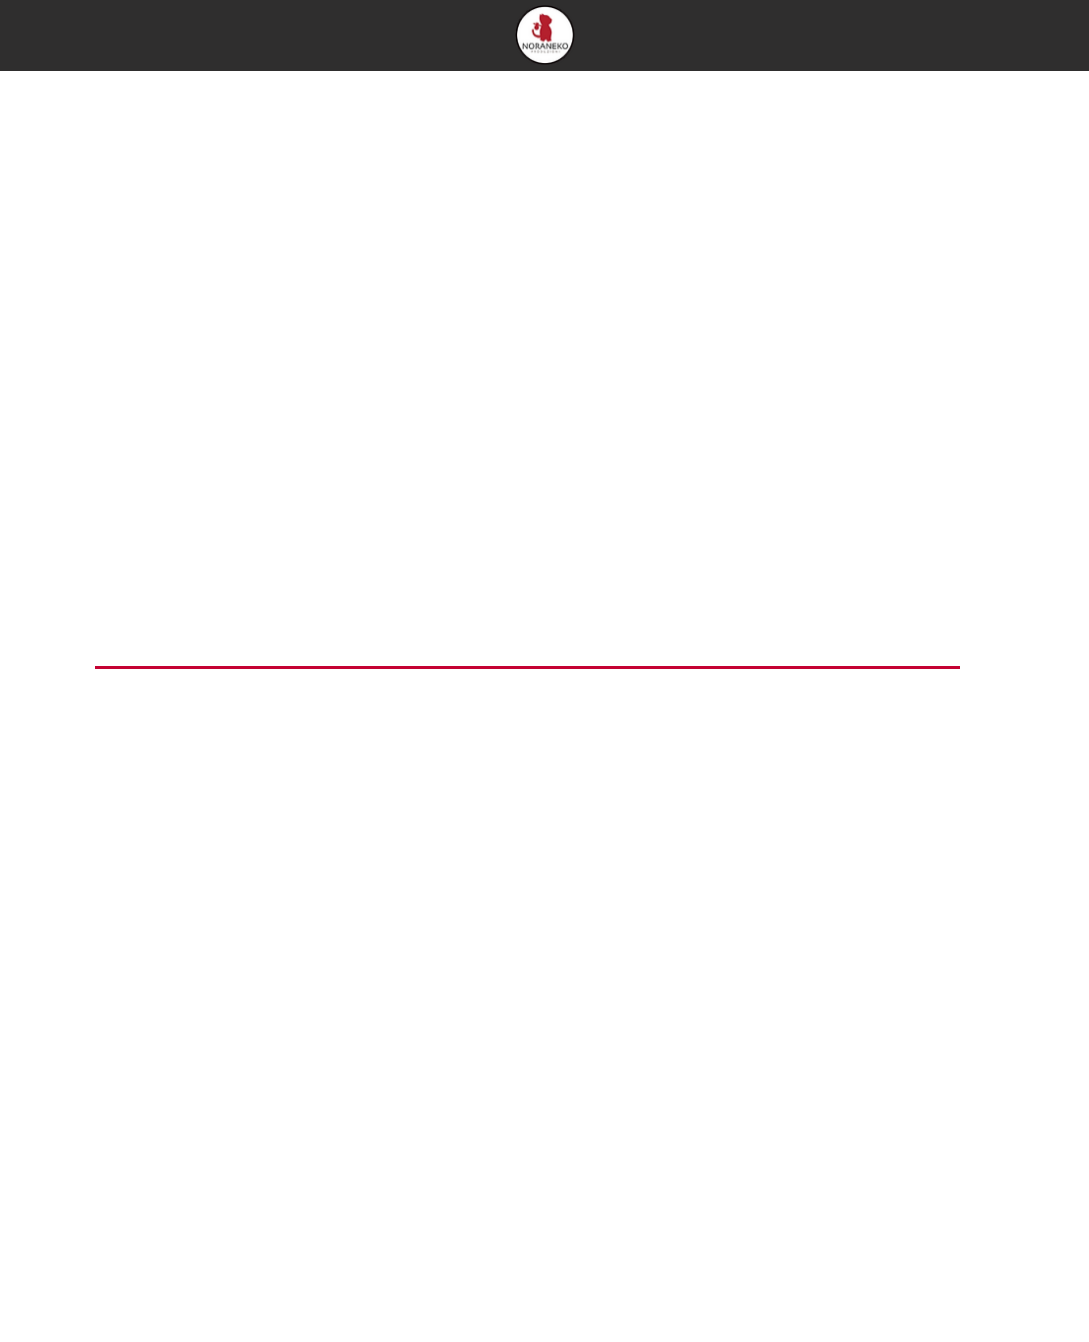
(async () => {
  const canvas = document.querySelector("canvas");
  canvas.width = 1089;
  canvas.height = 1342;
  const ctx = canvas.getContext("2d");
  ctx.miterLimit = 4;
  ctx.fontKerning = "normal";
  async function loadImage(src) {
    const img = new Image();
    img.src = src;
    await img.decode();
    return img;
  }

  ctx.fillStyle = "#ffffff";
  ctx.fillRect(0, 0, 1089, 1342);
  ctx.fillStyle = "#2f2e2e";
  ctx.fillRect(0, 0, 1089, 71);
  ctx.drawImage(await loadImage("img/1.png"), 515, 5, 60, 60);
  ctx.fillStyle = "#c40233";
  ctx.fillRect(95, 666, 865, 3);
})();
